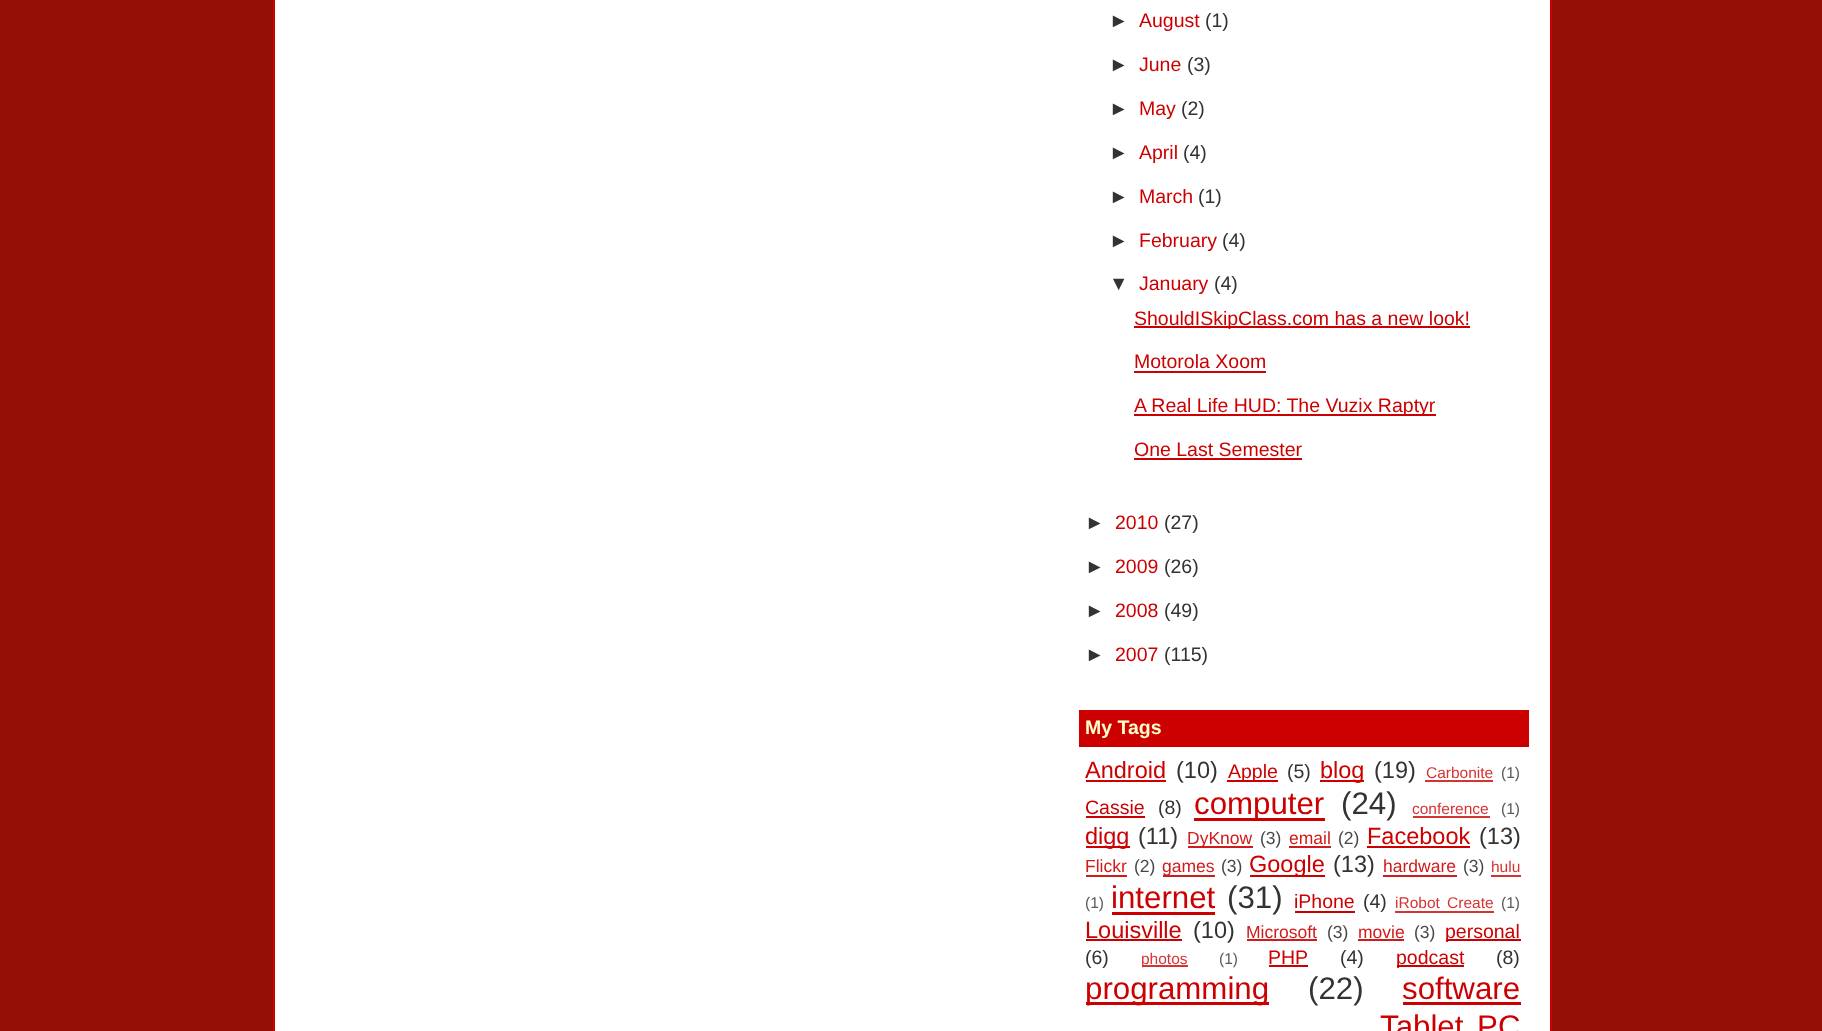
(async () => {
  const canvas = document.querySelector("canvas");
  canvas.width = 1822;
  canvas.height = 1031;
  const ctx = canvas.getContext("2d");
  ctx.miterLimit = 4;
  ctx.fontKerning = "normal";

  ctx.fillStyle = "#940f04";
  ctx.fillRect(0, 0, 1822, 1031);
  for (const [x, y, w, h, color] of [
    [275, 0, 1275, 1031, "#ffffff"],
    [1550, 0, 2, 1031, "#cc0000"],
    [273, 0, 2, 1031, "#cc0000"],
    [1134, 326, 336, 2, "#cc0000"],
    [1134, 371, 132, 2, "#cc0000"],
    [1134, 414, 302, 2, "#cc0000"],
    [1134, 458, 168, 2, "#cc0000"],
    [1079, 710, 450, 37, "#cc0000"],
    [1086, 780, 80, 2, "#cc0000"],
    [1227, 780, 51, 2, "#cc0000"],
    [1320, 780, 44, 2, "#cc0000"],
    [1425, 780, 68, 2, "#d63333"],
    [1086, 816, 59, 2, "#cc0000"],
    [1194, 818, 131, 3, "#cc0000"],
    [1413, 816, 77, 2, "#d63333"],
    [1086, 846, 44, 2, "#cc0000"],
    [1188, 846, 65, 2, "#d11a1a"],
    [1289, 846, 42, 2, "#d11a1a"],
    [1367, 846, 103, 2, "#cc0000"],
    [1086, 875, 41, 2, "#d11a1a"],
    [1163, 875, 52, 2, "#d11a1a"],
    [1250, 875, 75, 2, "#cc0000"],
    [1383, 875, 74, 2, "#d11a1a"],
    [1491, 875, 30, 2, "#d63333"],
    [1112, 912, 103, 3, "#cc0000"],
    [1295, 911, 60, 2, "#cc0000"],
    [1395, 911, 99, 2, "#d63333"],
    [1086, 939, 96, 2, "#cc0000"],
    [1247, 939, 70, 2, "#d11a1a"],
    [1358, 939, 46, 2, "#d11a1a"],
    [1446, 939, 75, 2, "#cc0000"],
    [1142, 965, 46, 2, "#d63333"],
    [1269, 965, 39, 2, "#cc0000"],
    [1397, 965, 67, 2, "#cc0000"],
    [1086, 1002, 183, 3, "#cc0000"],
    [1403, 1002, 118, 3, "#cc0000"],
  ]) {
    ctx.fillStyle = color;
    ctx.fillRect(x, y, w, h);
  }
  ctx.font = "19.5px Liberation Sans";
  ctx.fillStyle = "#333333";
  ctx.fillText("►", 1109, 27);
  ctx.fillStyle = "#cc0000";
  ctx.fillText("August", 1139, 27);
  ctx.fillStyle = "#333333";
  ctx.fillText("(1)", 1205, 27);
  ctx.fillText("►", 1109, 71);
  ctx.fillStyle = "#cc0000";
  ctx.fillText("June", 1139, 71);
  ctx.fillStyle = "#333333";
  ctx.fillText("(3)", 1187, 71);
  ctx.fillText("►", 1109, 115);
  ctx.fillStyle = "#cc0000";
  ctx.fillText("May", 1139, 115);
  ctx.fillStyle = "#333333";
  ctx.fillText("(2)", 1181, 115);
  ctx.fillText("►", 1109, 159);
  ctx.fillStyle = "#cc0000";
  ctx.fillText("April", 1139, 159);
  ctx.fillStyle = "#333333";
  ctx.fillText("(4)", 1183, 159);
  ctx.fillText("►", 1109, 203);
  ctx.fillStyle = "#cc0000";
  ctx.fillText("March", 1139, 203);
  ctx.fillStyle = "#333333";
  ctx.fillText("(1)", 1198, 203);
  ctx.fillText("►", 1109, 247);
  ctx.fillStyle = "#cc0000";
  ctx.fillText("February", 1139, 247);
  ctx.fillStyle = "#333333";
  ctx.fillText("(4)", 1222, 247);
  ctx.fillText("▼", 1109, 290);
  ctx.fillStyle = "#cc0000";
  ctx.fillText("January", 1139, 290);
  ctx.fillStyle = "#333333";
  ctx.fillText("(4)", 1214, 290);
  ctx.fillStyle = "#cc0000";
  for (const [text, x, y] of [
    ["ShouldISkipClass.com has a new look!", 1134, 325],
    ["Motorola Xoom", 1134, 368],
    ["A Real Life HUD: The Vuzix Raptyr", 1134, 412],
    ["One Last Semester", 1134, 456],
  ]) {
    ctx.fillText(text, x, y);
  }
  ctx.fillStyle = "#333333";
  ctx.fillText("►", 1085, 529);
  ctx.fillStyle = "#cc0000";
  ctx.fillText("2010", 1115, 529);
  ctx.fillStyle = "#333333";
  ctx.fillText("(27)", 1164, 529);
  ctx.fillText("►", 1085, 573);
  ctx.fillStyle = "#cc0000";
  ctx.fillText("2009", 1115, 573);
  ctx.fillStyle = "#333333";
  ctx.fillText("(26)", 1164, 573);
  ctx.fillText("►", 1085, 617);
  ctx.fillStyle = "#cc0000";
  ctx.fillText("2008", 1115, 617);
  ctx.fillStyle = "#333333";
  ctx.fillText("(49)", 1164, 617);
  ctx.fillText("►", 1085, 661);
  ctx.fillStyle = "#cc0000";
  ctx.fillText("2007", 1115, 661);
  ctx.fillStyle = "#333333";
  ctx.fillText("(115)", 1164, 661);
  ctx.font = "bold 19.5px Liberation Sans";
  ctx.fillStyle = "#ffffcc";
  ctx.fillText("My Tags", 1085, 734);
  ctx.font = "23.5px Liberation Sans";
  ctx.fillStyle = "#cc0000";
  ctx.fillText("Android", 1085, 778);
  ctx.fillStyle = "#333333";
  ctx.fillText("(10)", 1176, 778);
  ctx.font = "19.5px Liberation Sans";
  ctx.fillStyle = "#cc0000";
  ctx.fillText("Apple", 1228, 778);
  ctx.fillStyle = "#333333";
  ctx.fillText("(5)", 1287, 778);
  ctx.font = "23.5px Liberation Sans";
  ctx.fillStyle = "#cc0000";
  ctx.fillText("blog", 1320, 778);
  ctx.fillStyle = "#333333";
  ctx.fillText("(19)", 1374, 778);
  ctx.font = "15.5px Liberation Sans";
  ctx.fillStyle = "#d63333";
  ctx.fillText("Carbonite", 1426, 778);
  ctx.fillStyle = "#5c5c5c";
  ctx.fillText("(1)", 1501, 778);
  ctx.font = "19.5px Liberation Sans";
  ctx.fillStyle = "#cc0000";
  ctx.fillText("Cassie", 1085, 814);
  ctx.fillStyle = "#333333";
  ctx.fillText("(8)", 1158, 814);
  ctx.font = "31.25px Liberation Sans";
  ctx.fillStyle = "#cc0000";
  ctx.fillText("computer", 1194, 814);
  ctx.fillStyle = "#333333";
  ctx.fillText("(24)", 1341, 814);
  ctx.font = "15.5px Liberation Sans";
  ctx.fillStyle = "#d63333";
  ctx.fillText("conference", 1412, 814);
  ctx.fillStyle = "#5c5c5c";
  ctx.fillText("(1)", 1501, 814);
  ctx.font = "23.5px Liberation Sans";
  ctx.fillStyle = "#cc0000";
  ctx.fillText("digg", 1085, 844);
  ctx.fillStyle = "#333333";
  ctx.fillText("(11)", 1138, 844);
  ctx.font = "17.5px Liberation Sans";
  ctx.fillStyle = "#d11a1a";
  ctx.fillText("DyKnow", 1187, 844);
  ctx.fillStyle = "#474747";
  ctx.fillText("(3)", 1260, 844);
  ctx.fillStyle = "#d11a1a";
  ctx.fillText("email", 1289, 844);
  ctx.fillStyle = "#474747";
  ctx.fillText("(2)", 1338, 844);
  ctx.font = "23.5px Liberation Sans";
  ctx.fillStyle = "#cc0000";
  ctx.fillText("Facebook", 1367, 844);
  ctx.fillStyle = "#333333";
  ctx.fillText("(13)", 1479, 844);
  ctx.font = "17.5px Liberation Sans";
  ctx.fillStyle = "#d11a1a";
  ctx.fillText("Flickr", 1085, 872);
  ctx.fillStyle = "#474747";
  ctx.fillText("(2)", 1134, 872);
  ctx.fillStyle = "#d11a1a";
  ctx.fillText("games", 1162, 872);
  ctx.fillStyle = "#474747";
  ctx.fillText("(3)", 1221, 872);
  ctx.font = "23.5px Liberation Sans";
  ctx.fillStyle = "#cc0000";
  ctx.fillText("Google", 1249, 872);
  ctx.fillStyle = "#333333";
  ctx.fillText("(13)", 1333, 872);
  ctx.font = "17.5px Liberation Sans";
  ctx.fillStyle = "#d11a1a";
  ctx.fillText("hardware", 1383, 872);
  ctx.fillStyle = "#474747";
  ctx.fillText("(3)", 1463, 872);
  ctx.font = "15.5px Liberation Sans";
  ctx.fillStyle = "#d63333";
  ctx.fillText("hulu", 1491, 872);
  ctx.fillStyle = "#5c5c5c";
  ctx.fillText("(1)", 1085, 908);
  ctx.font = "31.25px Liberation Sans";
  ctx.fillStyle = "#cc0000";
  ctx.fillText("internet", 1111, 908);
  ctx.fillStyle = "#333333";
  ctx.fillText("(31)", 1227, 908);
  ctx.font = "19.5px Liberation Sans";
  ctx.fillStyle = "#cc0000";
  ctx.fillText("iPhone", 1294, 908);
  ctx.fillStyle = "#333333";
  ctx.fillText("(4)", 1363, 908);
  ctx.wordSpacing = "3px";
  ctx.font = "15.5px Liberation Sans";
  ctx.fillStyle = "#d63333";
  ctx.fillText("iRobot Create", 1395, 908);
  ctx.wordSpacing = "0px";
  ctx.fillStyle = "#5c5c5c";
  ctx.fillText("(1)", 1501, 908);
  ctx.font = "23.5px Liberation Sans";
  ctx.fillStyle = "#cc0000";
  ctx.fillText("Louisville", 1085, 938);
  ctx.fillStyle = "#333333";
  ctx.fillText("(10)", 1193, 938);
  ctx.font = "17.5px Liberation Sans";
  ctx.fillStyle = "#d11a1a";
  ctx.fillText("Microsoft", 1246, 938);
  ctx.fillStyle = "#474747";
  ctx.fillText("(3)", 1327, 938);
  ctx.fillStyle = "#d11a1a";
  ctx.fillText("movie", 1358, 938);
  ctx.fillStyle = "#474747";
  ctx.fillText("(3)", 1414, 938);
  ctx.font = "19.5px Liberation Sans";
  ctx.fillStyle = "#cc0000";
  ctx.fillText("personal", 1445, 938);
  ctx.fillStyle = "#333333";
  ctx.fillText("(6)", 1085, 964);
  ctx.font = "15.5px Liberation Sans";
  ctx.fillStyle = "#d63333";
  ctx.fillText("photos", 1141, 964);
  ctx.fillStyle = "#5c5c5c";
  ctx.fillText("(1)", 1219, 964);
  ctx.font = "19.5px Liberation Sans";
  ctx.fillStyle = "#cc0000";
  ctx.fillText("PHP", 1268, 964);
  ctx.fillStyle = "#333333";
  ctx.fillText("(4)", 1340, 964);
  ctx.fillStyle = "#cc0000";
  ctx.fillText("podcast", 1396, 964);
  ctx.fillStyle = "#333333";
  ctx.fillText("(8)", 1496, 964);
  ctx.font = "31.25px Liberation Sans";
  ctx.fillStyle = "#cc0000";
  ctx.fillText("programming", 1085, 999);
  ctx.fillStyle = "#333333";
  ctx.fillText("(22)", 1308, 999);
  ctx.fillStyle = "#cc0000";
  ctx.fillText("software", 1402, 999);
  ctx.wordSpacing = "5px";
  ctx.fillText("Tablet PC", 1380, 1037);
})();
